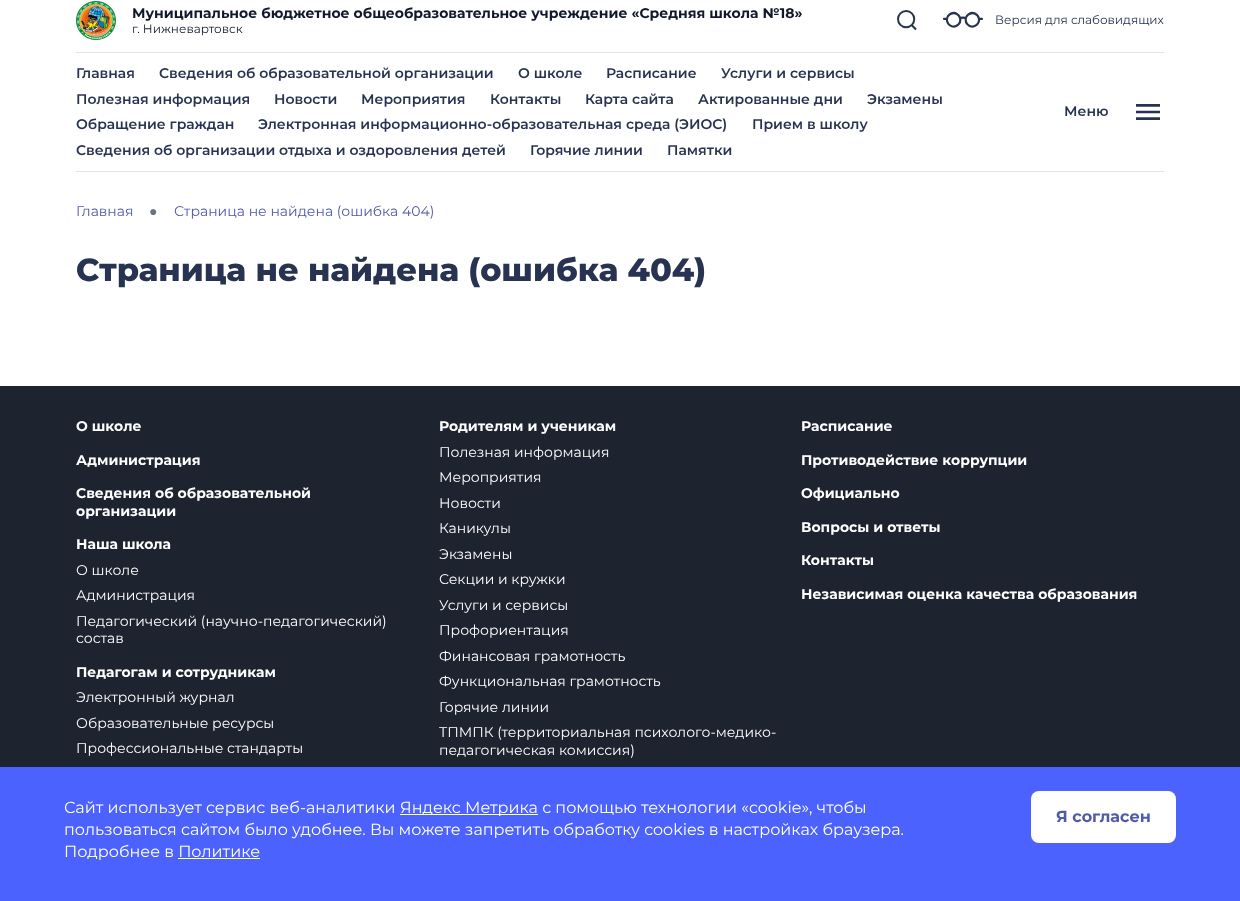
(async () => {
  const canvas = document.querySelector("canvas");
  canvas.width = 1240;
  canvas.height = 901;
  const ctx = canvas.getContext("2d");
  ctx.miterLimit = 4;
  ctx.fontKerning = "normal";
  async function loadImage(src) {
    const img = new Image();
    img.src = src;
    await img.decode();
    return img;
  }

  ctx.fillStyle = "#ffffff";
  ctx.fillRect(0, 0, 1240, 901);
  ctx.fillStyle = "#e3e3e3";
  ctx.fillRect(76, 52, 1088, 1);
  ctx.drawImage(await loadImage("img/1.png"), 76, 1, 40, 39);
  ctx.drawImage(await loadImage("img/2.png"), 897, 10, 20, 21);
  ctx.drawImage(await loadImage("img/3.png"), 943, 11, 40, 17);
  ctx.fillRect(76, 171, 1088, 1);
  ctx.drawImage(await loadImage("img/4.png"), 1136, 104, 24, 16);
  for (const [x, y, w, h, color] of [
    [0, 386, 1240, 381, "#1d232f"],
    [0, 767, 1240, 134, "#4b62ff"],
    [400, 814, 138, 1, "#ffffff"],
    [178, 858, 82, 1, "#ffffff"],
  ]) {
    ctx.fillStyle = color;
    ctx.fillRect(x, y, w, h);
  }
  ctx.beginPath();
  ctx.roundRect(1031, 791, 145, 52, 8);
  ctx.fill();
  ctx.font = "bold 14px Montserrat";
  ctx.fillStyle = "#10182b";
  ctx.fillText("Муниципальное бюджетное общеобразовательное учреждение «Средняя школа №18»", 132, 18);
  ctx.font = "12px Montserrat";
  ctx.fillText("г. Нижневартовск", 132, 33);
  ctx.fillStyle = "#273350";
  ctx.fillText("Версия для слабовидящих", 995, 24);
  ctx.font = "600 14px Montserrat";
  for (const [text, x, y] of [
    ["Главная", 76, 78],
    ["Сведения об образовательной организации", 159, 78],
    ["О школе", 518, 78],
    ["Расписание", 606, 78],
    ["Услуги и сервисы", 721, 78],
    ["Полезная информация", 76, 104],
    ["Новости", 274, 104],
    ["Мероприятия", 361, 104],
    ["Контакты", 490, 104],
    ["Карта сайта", 585, 104],
    ["Актированные дни", 698, 104],
    ["Экзамены", 867, 104],
    ["Обращение граждан", 76, 129],
    ["Электронная информационно-образовательная среда (ЭИОС)", 258, 129],
    ["Прием в школу", 752, 129],
    ["Сведения об организации отдыха и оздоровления детей", 76, 155],
    ["Горячие линии", 530, 155],
    ["Памятки", 667, 155],
    ["Меню", 1064, 116],
  ]) {
    ctx.fillText(text, x, y);
  }
  ctx.font = "14px Montserrat";
  ctx.fillStyle = "#4f5aa8";
  ctx.fillText("Главная", 76, 216);
  ctx.font = "14px Liberation Serif";
  ctx.fillStyle = "#6c757d";
  ctx.fillText("●", 149, 216);
  ctx.font = "14px Montserrat";
  ctx.fillStyle = "#4f5aa8";
  ctx.fillText("Страница не найдена (ошибка 404)", 174, 216);
  ctx.font = "800 32px Montserrat";
  ctx.fillStyle = "#273350";
  ctx.fillText("Страница не найдена (ошибка 404)", 76, 281);
  ctx.font = "bold 14px Montserrat";
  ctx.fillStyle = "#ffffff";
  for (const [text, x, y] of [
    ["О школе", 76, 431],
    ["Администрация", 76, 465],
    ["Сведения об образовательной", 76, 498],
    ["организации", 76, 516],
    ["Наша школа", 76, 549],
  ]) {
    ctx.fillText(text, x, y);
  }
  ctx.font = "14px Montserrat";
  for (const [text, x, y] of [
    ["О школе", 76, 575],
    ["Администрация", 76, 600],
    ["Педагогический (научно-педагогический)", 76, 626],
    ["состав", 76, 643],
  ]) {
    ctx.fillText(text, x, y);
  }
  ctx.font = "bold 14px Montserrat";
  ctx.fillText("Педагогам и сотрудникам", 76, 677);
  ctx.font = "14px Montserrat";
  for (const [text, x, y] of [
    ["Электронный журнал", 76, 702],
    ["Образовательные ресурсы", 76, 728],
    ["Профессиональные стандарты", 76, 753],
  ]) {
    ctx.fillText(text, x, y);
  }
  ctx.font = "bold 14px Montserrat";
  ctx.fillText("Родителям и ученикам", 439, 431);
  ctx.font = "14px Montserrat";
  for (const [text, x, y] of [
    ["Полезная информация", 439, 457],
    ["Мероприятия", 439, 482],
    ["Новости", 439, 508],
    ["Каникулы", 439, 533],
    ["Экзамены", 439, 559],
    ["Секции и кружки", 439, 584],
    ["Услуги и сервисы", 439, 610],
    ["Профориентация", 439, 635],
    ["Финансовая грамотность", 439, 661],
    ["Функциональная грамотность", 439, 686],
    ["Горячие линии", 439, 712],
    ["ТПМПК (территориальная психолого-медико-", 439, 737],
    ["педагогическая комиссия)", 439, 755],
  ]) {
    ctx.fillText(text, x, y);
  }
  ctx.font = "bold 14px Montserrat";
  for (const [text, x, y] of [
    ["Расписание", 801, 431],
    ["Противодействие коррупции", 801, 465],
    ["Официально", 801, 498],
    ["Вопросы и ответы", 801, 532],
    ["Контакты", 801, 565],
    ["Независимая оценка качества образования", 801, 599],
  ]) {
    ctx.fillText(text, x, y);
  }
  ctx.font = "16px Montserrat";
  for (const [text, x, y] of [
    ["Сайт использует сервис веб-аналитики", 64, 813],
    ["Яндекс Метрика с помощью технологии «cookie», чтобы", 400, 813],
    ["пользоваться сайтом было удобнее. Вы можете запретить обработку cookies в настройках браузера.", 64, 835],
    ["Подробнее в Политике", 64, 857],
  ]) {
    ctx.fillText(text, x, y);
  }
  ctx.font = "bold 16px Montserrat";
  ctx.fillStyle = "#4f5aa8";
  ctx.fillText("Я согласен", 1056, 822);
})();
